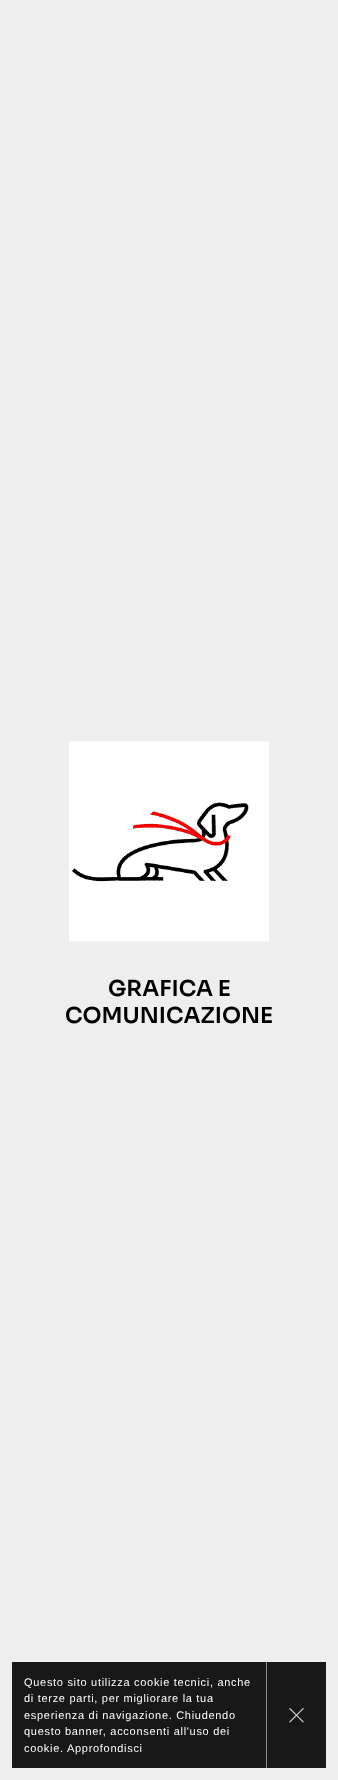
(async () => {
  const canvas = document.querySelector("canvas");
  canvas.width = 338;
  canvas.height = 1780;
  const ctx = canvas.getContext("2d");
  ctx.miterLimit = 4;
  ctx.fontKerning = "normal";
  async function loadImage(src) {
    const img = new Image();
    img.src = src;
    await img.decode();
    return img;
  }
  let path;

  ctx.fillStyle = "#eeeeee";
  ctx.fillRect(0, 0, 338, 1780);
  ctx.drawImage(await loadImage("img/1.png"), 69, 741, 200, 201);
  ctx.fillStyle = "#181818";
  ctx.fillRect(12, 1662, 314, 106);
  ctx.fillStyle = "#8d8d8d";
  ctx.fillRect(266, 1662, 1, 106);
  ctx.fillStyle = "#dbdbdb";
  path = new Path2D("M290 1708L304 1722L303 1722.5L289 1708.5Z");
  ctx.fill(path);
  path = new Path2D("M289 1722L303 1708L304 1708.5L290 1722.5Z");
  ctx.fill(path);
  ctx.font = "600 22px Sora";
  ctx.fillStyle = "#000000";
  ctx.fillText("GRAFICA E", 108, 996);
  ctx.fillText("COMUNICAZIONE", 65, 1023);
  ctx.letterSpacing = "0.7px";
  ctx.font = "11px Liberation Sans";
  ctx.fillStyle = "#fdfdfd";
  for (const [text, x, y] of [
    ["Questo sito utilizza cookie tecnici, anche", 24, 1686],
    ["di terze parti, per migliorare la tua", 24, 1702],
    ["esperienza di navigazione. Chiudendo", 24, 1719],
    ["questo banner, acconsenti all'uso dei", 24, 1735],
    ["cookie.", 24, 1752],
    ["Approfondisci", 67, 1752],
  ]) {
    ctx.fillText(text, x, y);
  }
})();
